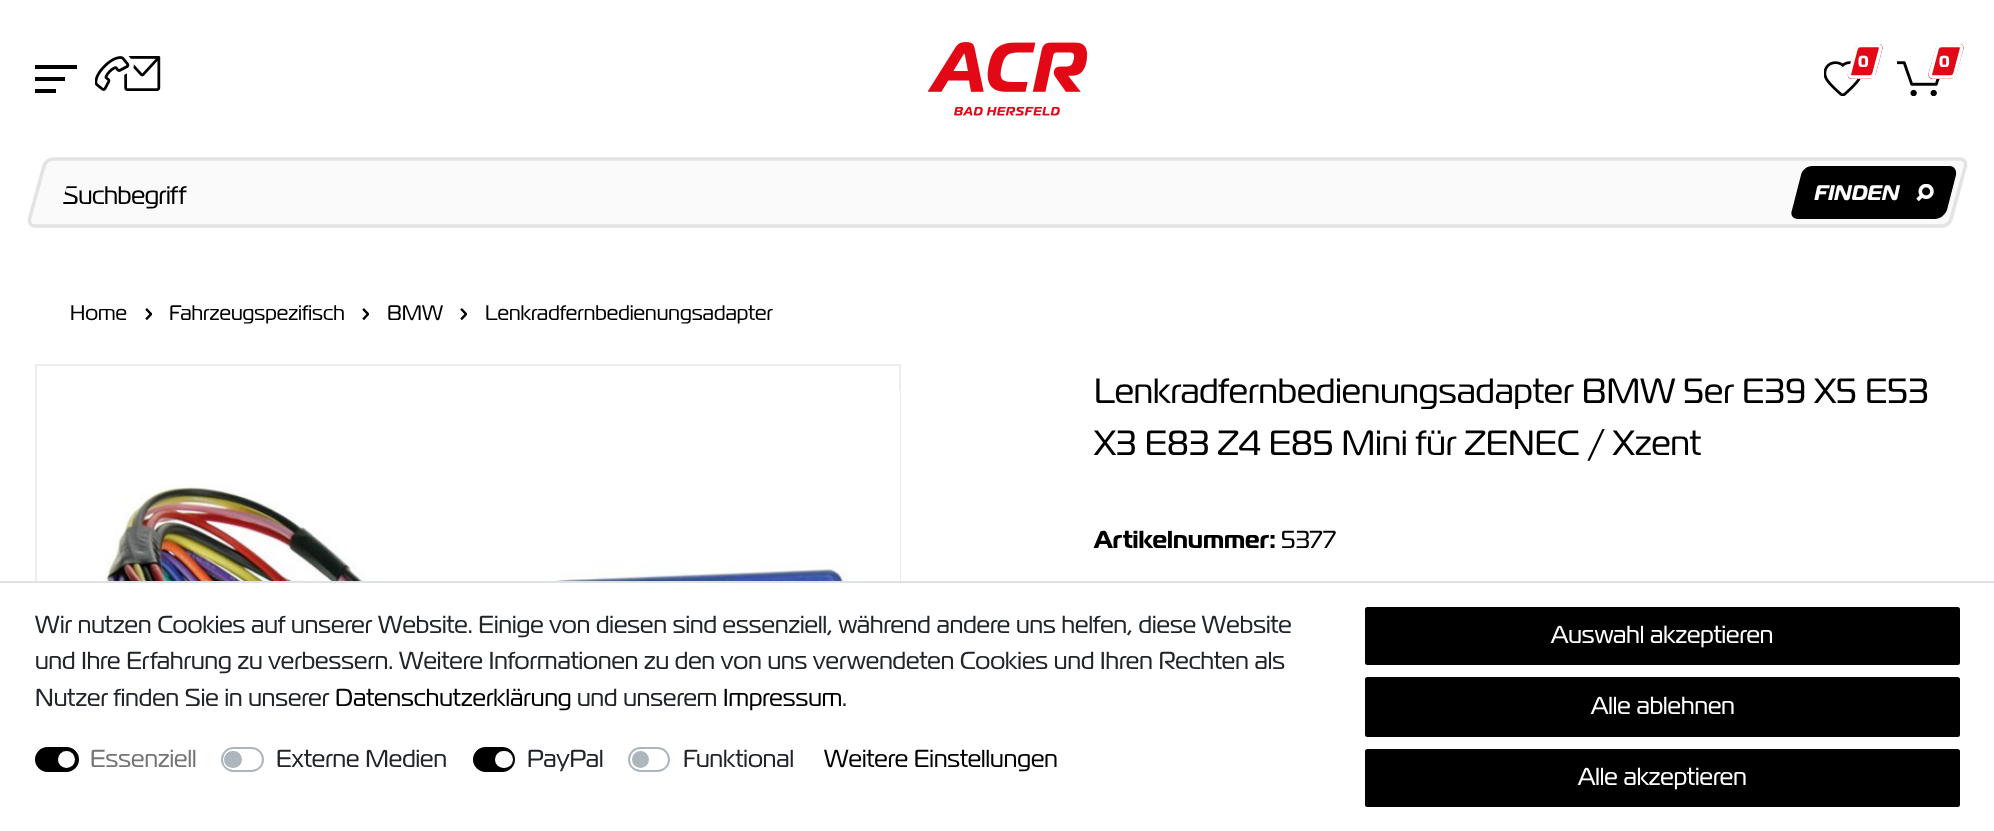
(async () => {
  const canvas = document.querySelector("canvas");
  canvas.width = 1994;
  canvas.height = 831;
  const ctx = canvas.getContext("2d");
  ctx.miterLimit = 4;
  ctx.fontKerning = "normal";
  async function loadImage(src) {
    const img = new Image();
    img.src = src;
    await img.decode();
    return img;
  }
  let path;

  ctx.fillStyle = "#ffffff";
  ctx.fillRect(0, 0, 1994, 831);
  for (const [x, y, w, h, color] of [
    [35, 77, 30, 4, "#000000"],
    [35, 65, 42, 4, "#000000"],
    [35, 89, 21, 4, "#000000"],
  ]) {
    ctx.fillStyle = color;
    ctx.fillRect(x, y, w, h);
  }
  ctx.drawImage(await loadImage("img/1.png"), 95, 56, 66, 35);
  ctx.drawImage(await loadImage("img/2.png"), 928, 42, 160, 74);
  ctx.drawImage(await loadImage("img/3.png"), 1824, 61, 37, 35);
  ctx.fillStyle = "#e20816";
  path = new Path2D("M1861 44H1878.5C1881.5 44 1883 46 1882.5 49L1876 73.5C1875 76.5 1872 79 1869 79H1851.5C1849 79 1847 76.5 1848 73.5L1854.5 49C1855 46 1858 44 1861 44Z");
  ctx.fill(path);
  path = new Path2D("M1860.5 45.5H1878C1880 45.5 1881 47 1880.5 49L1874 73.5C1873.5 75.5 1871.5 77 1869.5 77H1852C1850 77 1849 75.5 1849.5 73.5L1856 49C1856.5 47 1858.5 45.5 1860.5 45.5Z");
  ctx.strokeStyle = "#ffffff";
  ctx.lineWidth = 3.5;
  ctx.stroke(path);
  ctx.drawImage(await loadImage("img/4.png"), 1897, 61, 43, 35);
  path = new Path2D("M1942 44H1959.5C1962.5 44 1964 46 1963.5 49L1956.5 73.5C1956 76.5 1953 79 1950 79H1932.5C1929.5 79 1928 76.5 1928.5 73.5L1935.5 49C1936 46 1939 44 1942 44Z");
  ctx.fill(path);
  path = new Path2D("M1941.5 45.5H1959C1961 45.5 1962 47 1961.5 49L1955 73.5C1954.5 75.5 1952.5 77 1950.5 77H1933C1931 77 1930 75.5 1930.5 73.5L1937 49C1937.5 47 1939.5 45.5 1941.5 45.5Z");
  ctx.stroke(path);
  ctx.fillStyle = "#fafafa";
  path = new Path2D("M53 158H1961C1965 158 1968 161 1967 166L1953 219C1952 224 1947 228 1942 228H34C30 228 27 224 28 219L42 166C43 161 48 158 53 158Z");
  ctx.fill(path);
  path = new Path2D("M52.5 159H1960C1964 159 1966.5 162.5 1965.5 166L1951 219C1950 222.5 1946 226 1942.5 226H35C31 226 28.5 222.5 29.5 219L44 166C45 162.5 49 159 52.5 159Z");
  ctx.strokeStyle = "#e3e3e3";
  ctx.stroke(path);
  ctx.fillStyle = "#000000";
  path = new Path2D("M1812 166H1950C1954 166 1957 170 1956 175L1947 210C1945 215 1940 219 1935 219H1798C1793 219 1790 215 1792 210L1801 175C1802 170 1807 166 1812 166Z");
  ctx.fill(path);
  ctx.drawImage(await loadImage("img/5.png"), 1916, 184, 18, 17);
  ctx.drawImage(await loadImage("img/6.png"), 145, 308, 7, 12);
  ctx.drawImage(await loadImage("img/6.png"), 362, 308, 7, 12);
  ctx.drawImage(await loadImage("img/6.png"), 460, 308, 7, 12);
  ctx.strokeStyle = "#ededed";
  ctx.lineWidth = 2;
  ctx.strokeRect(36, 365, 864, 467);
  ctx.fillStyle = "#ffffff";
  ctx.fillRect(899, 390, 1, 191);
  ctx.drawImage(await loadImage("img/7.png"), 80, 484, 783, 97);
  ctx.fillRect(35, 583, 866, 248);
  ctx.fillStyle = "#dee2e6";
  ctx.fillRect(0, 581, 1994, 2);
  ctx.fillStyle = "#000000";
  ctx.beginPath();
  ctx.roundRect(36, 748, 42, 23, 11.5);
  ctx.fill();
  ctx.strokeStyle = "#000000";
  ctx.stroke();
  ctx.fillStyle = "#ffffff";
  ctx.beginPath();
  ctx.arc(66.5, 759.5, 8.5, 0, Math.PI * 2);
  ctx.fill();
  ctx.beginPath();
  ctx.roundRect(222, 748, 41, 23, 11.5);
  ctx.strokeStyle = "#adb5bd";
  ctx.stroke();
  ctx.fillStyle = "#adb5bd";
  ctx.beginPath();
  ctx.roundRect(224, 751, 18, 17, 8.5);
  ctx.fill();
  ctx.fillStyle = "#000000";
  ctx.beginPath();
  ctx.roundRect(474, 748, 40, 23, 11.5);
  ctx.fill();
  ctx.strokeStyle = "#000000";
  ctx.stroke();
  ctx.fillStyle = "#ffffff";
  ctx.beginPath();
  ctx.roundRect(495, 751, 18, 17, 8.5);
  ctx.fill();
  ctx.beginPath();
  ctx.roundRect(629, 748, 40, 23, 11.5);
  ctx.strokeStyle = "#adb5bd";
  ctx.stroke();
  ctx.fillStyle = "#adb5bd";
  ctx.beginPath();
  ctx.arc(640.5, 759.5, 8.5, 0, Math.PI * 2);
  ctx.fill();
  ctx.fillStyle = "#000000";
  ctx.beginPath();
  ctx.roundRect(1366, 608, 593, 56, 1.5);
  ctx.fill();
  ctx.strokeStyle = "#000000";
  ctx.stroke();
  ctx.beginPath();
  ctx.roundRect(1366, 678, 593, 58, 1.5);
  ctx.fill();
  ctx.stroke();
  ctx.beginPath();
  ctx.roundRect(1366, 750, 593, 56, 1.5);
  ctx.fill();
  ctx.stroke();
  ctx.font = "bold 16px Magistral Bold";
  ctx.fillStyle = "#ffffff";
  ctx.fillText("0", 1858, 67);
  ctx.fillText("0", 1939, 67);
  ctx.save();
  path = new Path2D("M68.5 179.5H1757L1748.5 211H60Z");
  ctx.clip(path);
  ctx.letterSpacing = "-0.4px";
  ctx.font = "25.5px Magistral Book";
  ctx.fillStyle = "#000000";
  ctx.fillText("Suchbegriff", 62, 204);
  ctx.restore();
  ctx.font = "italic bold 21px Magistral Bold";
  ctx.fillText("FINDEN", 1814, 200);
  ctx.font = "21px Magistral Book";
  ctx.fillStyle = "#000000";
  for (const [text, x, y] of [
    ["Home", 70, 320],
    ["Fahrzeugspezifisch", 169, 320],
    ["BMW", 387, 320],
    ["Lenkradfernbedienungsadapter", 485, 320],
  ]) {
    ctx.fillText(text, x, y);
  }
  ctx.font = "35px Magistral Book";
  ctx.fillText("Lenkradfernbedienungsadapter BMW 5er E39 X5 E53", 1094, 403);
  ctx.fillText("X3 E83 Z4 E85 Mini für ZENEC / Xzent", 1094, 455);
  ctx.font = "bold 24.5px Magistral Bold";
  ctx.fillText("Artikelnummer:", 1094, 548);
  ctx.font = "24.5px Magistral Book";
  ctx.fillText("5377", 1281, 548);
  ctx.fillStyle = "#212529";
  for (const [text, x, y] of [
    ["Wir nutzen Cookies auf unserer Website. Einige von diesen sind essenziell, während andere uns helfen, diese Website", 35, 633],
    ["und Ihre Erfahrung zu verbessern. Weitere Informationen zu den von uns verwendeten Cookies und Ihren Rechten als", 35, 669],
    ["Nutzer finden Sie in unserer", 35, 706],
  ]) {
    ctx.fillText(text, x, y);
  }
  ctx.fillStyle = "#000000";
  ctx.fillText("Datenschutzerklärung", 335, 706);
  ctx.fillStyle = "#212529";
  ctx.fillText("und unserem", 577, 706);
  ctx.fillStyle = "#000000";
  ctx.fillText("Impressum", 723, 706);
  ctx.fillStyle = "#212529";
  ctx.fillText(".", 842, 706);
  ctx.fillStyle = "#767676";
  ctx.fillText("Essenziell", 90, 767);
  ctx.fillStyle = "#212529";
  for (const [text, x, y] of [
    ["Externe Medien", 276, 767],
    ["PayPal", 527, 767],
    ["Funktional", 683, 767],
  ]) {
    ctx.fillText(text, x, y);
  }
  ctx.fillStyle = "#000000";
  ctx.fillText("Weitere Einstellungen", 824, 767);
  ctx.fillStyle = "#ffffff";
  for (const [text, x, y] of [
    ["Auswahl akzeptieren", 1551, 643],
    ["Alle ablehnen", 1591, 714],
    ["Alle akzeptieren", 1578, 785],
  ]) {
    ctx.fillText(text, x, y);
  }
})();
